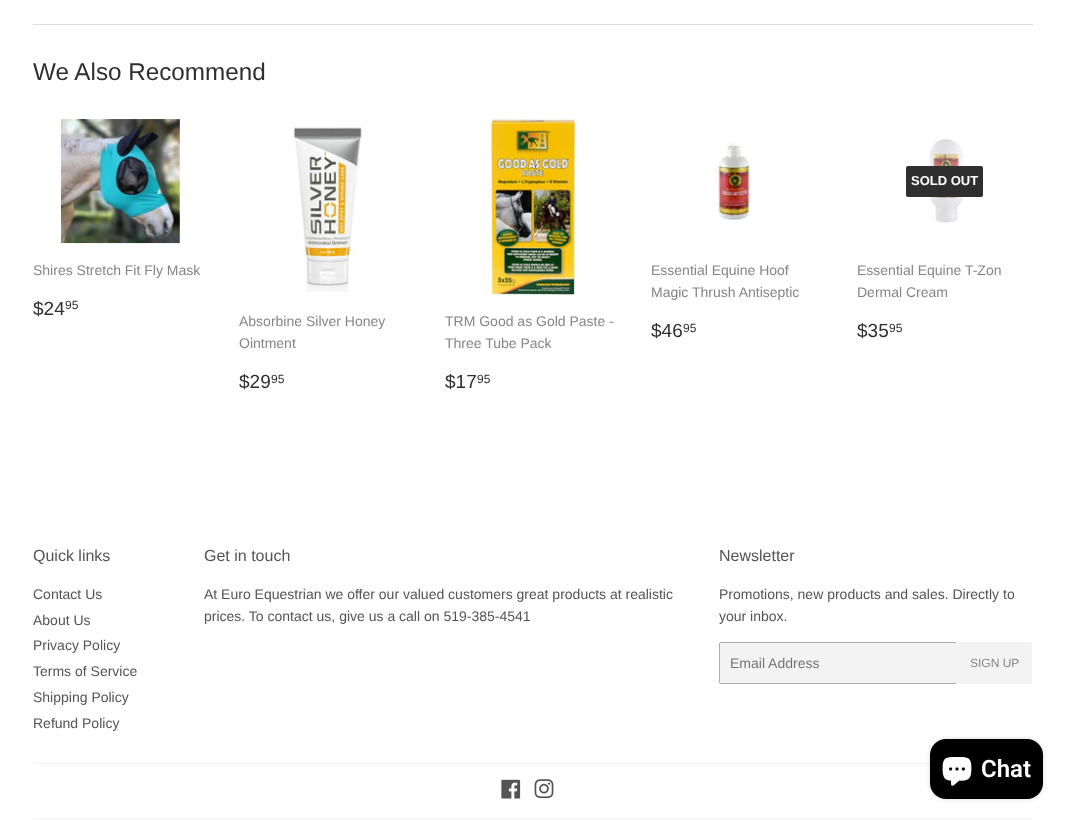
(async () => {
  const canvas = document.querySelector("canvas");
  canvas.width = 1065;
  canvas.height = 820;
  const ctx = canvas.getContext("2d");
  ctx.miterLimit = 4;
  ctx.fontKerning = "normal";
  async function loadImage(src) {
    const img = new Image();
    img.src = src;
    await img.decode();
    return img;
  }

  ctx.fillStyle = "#ffffff";
  ctx.fillRect(0, 0, 1065, 820);
  ctx.fillStyle = "#dedede";
  ctx.fillRect(33, 24, 1000, 1);
  ctx.drawImage(await loadImage("img/1.png"), 61, 119, 119, 125);
  ctx.drawImage(await loadImage("img/2.png"), 717, 143, 36, 77);
  ctx.drawImage(await loadImage("img/3.png"), 929, 139, 35, 84);
  ctx.fillStyle = "#2f2f2f";
  ctx.beginPath();
  ctx.roundRect(906, 166, 77, 31, 2);
  ctx.fill();
  ctx.drawImage(await loadImage("img/4.png"), 293, 127, 69, 165);
  ctx.drawImage(await loadImage("img/5.png"), 489, 119, 89, 176);
  ctx.fillStyle = "#f3f3f3";
  ctx.beginPath();
  ctx.roundRect(719, 642, 238, 42, 2);
  ctx.fill();
  for (const [x, y, w, h, color] of [
    [720, 642, 236, 1, "#ababab"],
    [720, 683, 236, 1, "#ababab"],
    [719, 643, 1, 40, "#ababab"],
  ]) {
    ctx.fillStyle = color;
    ctx.fillRect(x, y, w, h);
  }
  ctx.fillStyle = "#f3f3f3";
  ctx.beginPath();
  ctx.roundRect(957, 642, 75, 42, [0, 2, 2, 0]);
  ctx.fill();
  ctx.fillStyle = "#f2f2f2";
  ctx.fillRect(33, 763, 897, 1);
  ctx.drawImage(await loadImage("img/6.png"), 501, 779, 20, 20);
  ctx.drawImage(await loadImage("img/7.png"), 534, 779, 20, 20);
  ctx.fillRect(33, 818, 1000, 1);
  ctx.fillStyle = "rgba(0, 0, 0, 0.15)";
  ctx.filter = "blur(2.5px)";
  ctx.beginPath();
  ctx.roundRect(930, 739, 113, 60, 16);
  ctx.fill();
  ctx.filter = "none";
  ctx.fillStyle = "#000000";
  ctx.beginPath();
  ctx.roundRect(930, 739, 113, 60, 16);
  ctx.fill();
  ctx.drawImage(await loadImage("img/8.png"), 942, 757, 30, 29);
  ctx.font = "24.25px Liberation Sans";
  ctx.fillStyle = "#2f2f2f";
  ctx.fillText("We Also Recommend", 33, 80);
  ctx.font = "14px Liberation Sans";
  ctx.fillStyle = "#858585";
  ctx.fillText("Shires Stretch Fit Fly Mask", 33, 275);
  ctx.font = "19px Liberation Sans";
  ctx.fillStyle = "#2f2f2f";
  ctx.fillText("$24", 33, 315);
  ctx.font = "12px Liberation Sans";
  ctx.fillText("95", 65, 309);
  ctx.font = "14px Liberation Sans";
  ctx.fillStyle = "#858585";
  ctx.fillText("Essential Equine Hoof", 651, 275);
  ctx.fillText("Magic Thrush Antiseptic", 651, 297);
  ctx.font = "19px Liberation Sans";
  ctx.fillStyle = "#2f2f2f";
  ctx.fillText("$46", 651, 337);
  ctx.font = "12px Liberation Sans";
  ctx.fillText("95", 683, 332);
  ctx.font = "bold 13px Liberation Sans";
  ctx.fillStyle = "#ffffff";
  ctx.fillText("SOLD OUT", 911, 185);
  ctx.font = "14px Liberation Sans";
  ctx.fillStyle = "#858585";
  ctx.fillText("Essential Equine T-Zon", 857, 275);
  ctx.fillText("Dermal Cream", 857, 297);
  ctx.font = "19px Liberation Sans";
  ctx.fillStyle = "#2f2f2f";
  ctx.fillText("$35", 857, 337);
  ctx.font = "12px Liberation Sans";
  ctx.fillText("95", 889, 332);
  ctx.font = "14px Liberation Sans";
  ctx.fillStyle = "#858585";
  ctx.fillText("Absorbine Silver Honey", 239, 326);
  ctx.fillText("Ointment", 239, 348);
  ctx.font = "19px Liberation Sans";
  ctx.fillStyle = "#2f2f2f";
  ctx.fillText("$29", 239, 388);
  ctx.font = "12px Liberation Sans";
  ctx.fillText("95", 271, 383);
  ctx.font = "14px Liberation Sans";
  ctx.fillStyle = "#858585";
  ctx.fillText("TRM Good as Gold Paste -", 445, 326);
  ctx.fillText("Three Tube Pack", 445, 348);
  ctx.font = "19px Liberation Sans";
  ctx.fillStyle = "#2f2f2f";
  ctx.fillText("$17", 445, 388);
  ctx.font = "12px Liberation Sans";
  ctx.fillText("95", 477, 383);
  ctx.font = "16px Liberation Sans";
  ctx.fillStyle = "#545454";
  ctx.fillText("Quick links", 33, 561);
  ctx.font = "14px Liberation Sans";
  for (const [text, x, y] of [
    ["Contact Us", 33, 599],
    ["About Us", 33, 625],
    ["Privacy Policy", 33, 650],
    ["Terms of Service", 33, 676],
    ["Shipping Policy", 33, 702],
    ["Refund Policy", 33, 728],
  ]) {
    ctx.fillText(text, x, y);
  }
  ctx.font = "16px Liberation Sans";
  ctx.fillText("Get in touch", 204, 561);
  ctx.font = "14px Liberation Sans";
  ctx.fillText("At Euro Equestrian we offer our valued customers great products at realistic", 204, 599);
  ctx.fillText("prices. To contact us, give us a call on 519-385-4541", 204, 621);
  ctx.font = "16px Liberation Sans";
  ctx.fillText("Newsletter", 719, 561);
  ctx.font = "14px Liberation Sans";
  ctx.fillText("Promotions, new products and sales. Directly to", 719, 599);
  ctx.fillText("your inbox.", 719, 621);
  ctx.fillStyle = "#757575";
  ctx.fillText("Email Address", 730, 668);
  ctx.font = "12px Liberation Sans";
  ctx.fillStyle = "#858585";
  ctx.fillText("SIGN UP", 970, 667);
  ctx.font = "600 24px Roboto";
  ctx.fillStyle = "#ffffff";
  ctx.fillText("Chat", 981, 777);
})();
